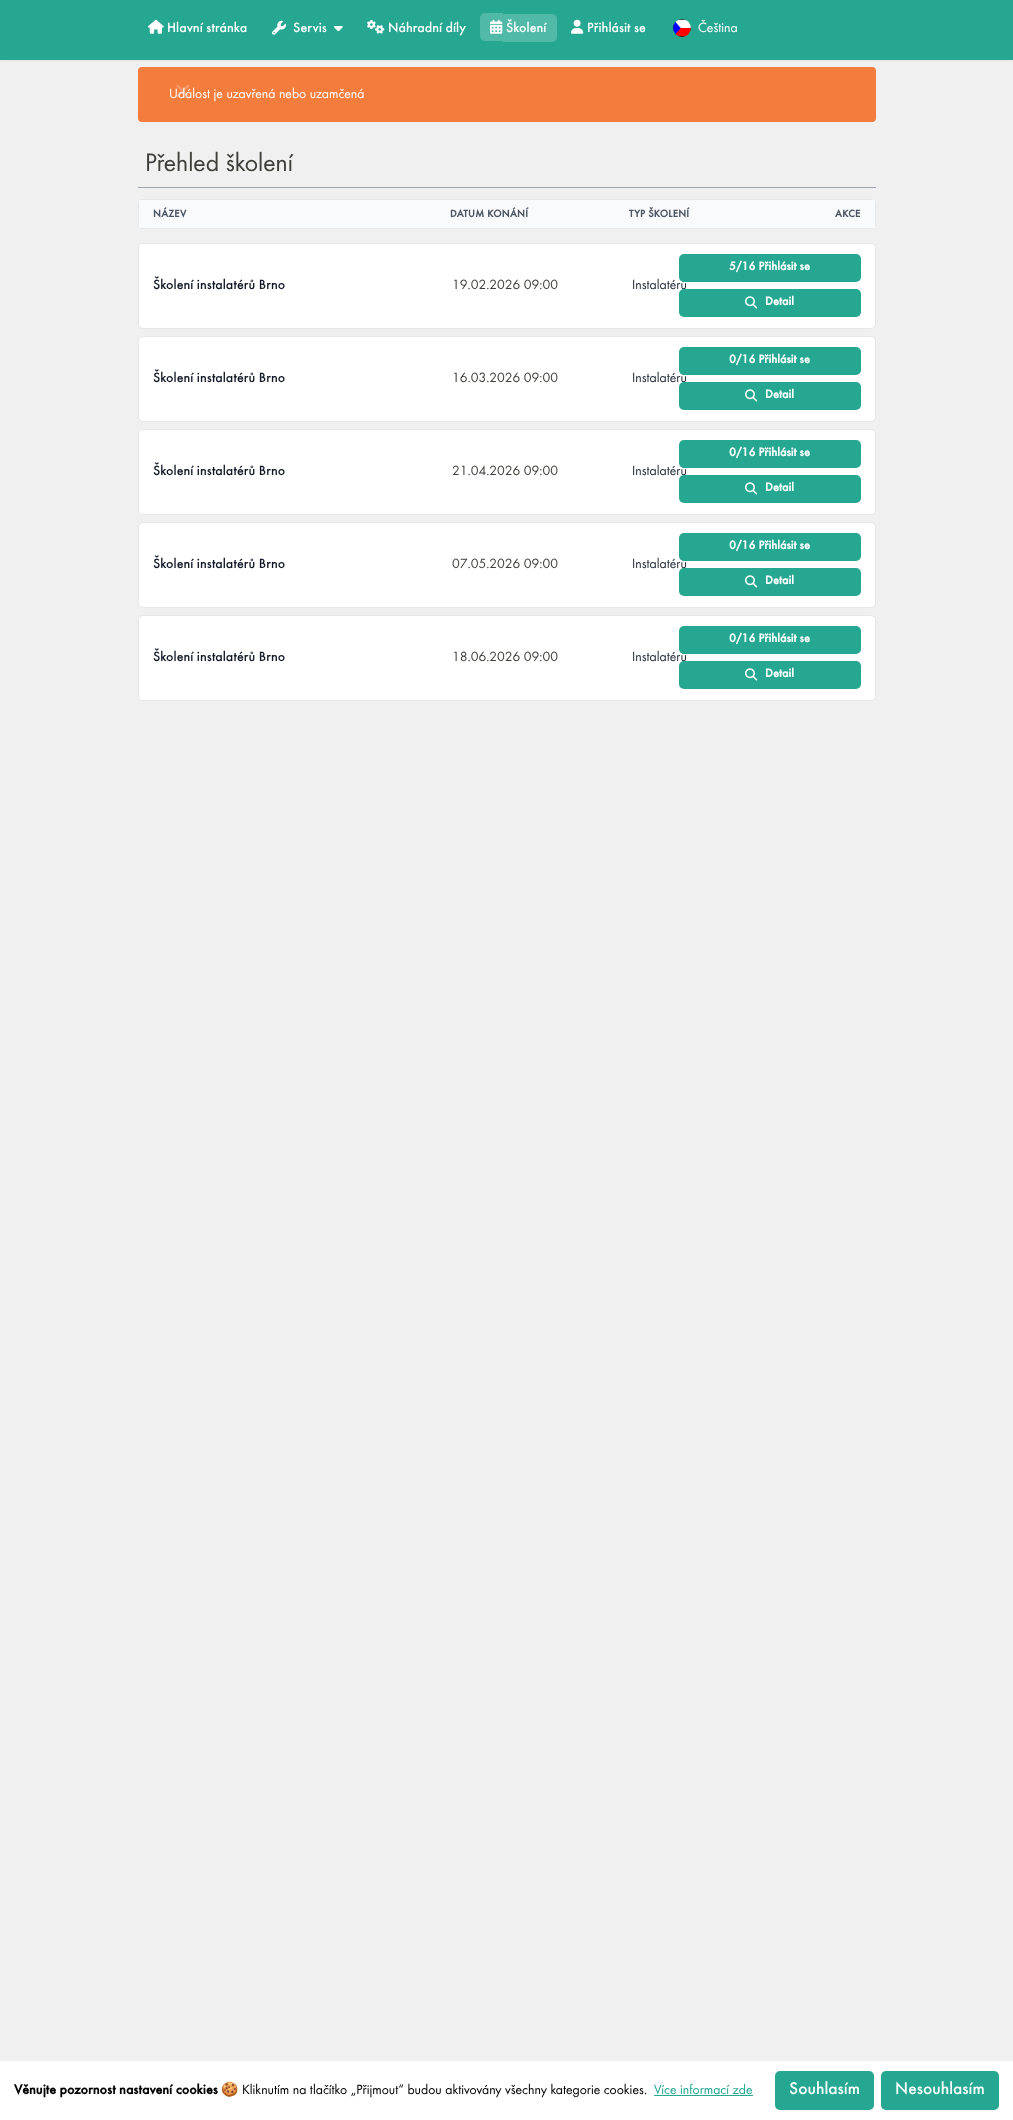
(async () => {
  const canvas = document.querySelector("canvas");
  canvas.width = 1013;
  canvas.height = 2120;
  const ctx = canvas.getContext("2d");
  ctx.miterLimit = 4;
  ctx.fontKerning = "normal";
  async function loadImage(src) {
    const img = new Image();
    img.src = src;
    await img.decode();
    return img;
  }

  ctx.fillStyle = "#f0f0f0";
  ctx.fillRect(0, 0, 1013, 2120);
  ctx.fillStyle = "rgba(0, 0, 0, 0.05)";
  ctx.filter = "blur(1px)";
  ctx.beginPath();
  ctx.rect(0, 1, 1013, 60);
  ctx.fill();
  ctx.filter = "none";
  ctx.fillStyle = "#26a792";
  ctx.fillRect(0, 0, 1013, 60);
  ctx.drawImage(await loadImage("img/1.png"), 148, 19, 16, 15);
  ctx.drawImage(await loadImage("img/2.png"), 272, 20, 14, 15);
  ctx.drawImage(await loadImage("img/3.png"), 334, 26, 9, 6);
  ctx.drawImage(await loadImage("img/4.png"), 367, 20, 18, 14);
  ctx.fillStyle = "#51b9a8";
  ctx.beginPath();
  ctx.roundRect(480, 13, 23, 28, [5, 0, 0, 5]);
  ctx.fill();
  ctx.beginPath();
  ctx.roundRect(503, 14, 54, 28, [0, 5, 5, 0]);
  ctx.fill();
  ctx.drawImage(await loadImage("img/5.png"), 490, 19, 13, 15);
  ctx.drawImage(await loadImage("img/6.png"), 571, 19, 13, 15);
  ctx.drawImage(await loadImage("img/7.png"), 673, 19, 18, 18);
  ctx.fillStyle = "#f47c3c";
  ctx.beginPath();
  ctx.roundRect(138, 67, 738, 55, 4);
  ctx.fill();
  ctx.fillStyle = "#9ca3af";
  ctx.fillRect(138, 187, 738, 1);
  ctx.beginPath();
  ctx.roundRect(138.5, 199.5, 737, 29, 4.5);
  ctx.strokeStyle = "#e5e7eb";
  ctx.stroke();
  ctx.fillStyle = "#f9fafb";
  ctx.fillRect(139, 200, 736, 28);
  ctx.fillStyle = "#ffffff";
  ctx.beginPath();
  ctx.roundRect(138.5, 243.5, 737, 85, 4.5);
  ctx.fill();
  ctx.stroke();
  ctx.beginPath();
  ctx.roundRect(138.5, 336.5, 737, 85, 4.5);
  ctx.fill();
  ctx.stroke();
  ctx.beginPath();
  ctx.roundRect(138.5, 429.5, 737, 85, 4.5);
  ctx.fill();
  ctx.stroke();
  ctx.beginPath();
  ctx.roundRect(138.5, 522.5, 737, 85, 4.5);
  ctx.fill();
  ctx.stroke();
  ctx.beginPath();
  ctx.roundRect(138.5, 615.5, 737, 85, 4.5);
  ctx.fill();
  ctx.stroke();
  ctx.fillRect(0, 2061, 1013, 59);
  ctx.fillStyle = "#26a792";
  ctx.fillRect(654, 2095, 99, 1);
  ctx.fillStyle = "rgba(0, 0, 0, 0.05)";
  ctx.filter = "blur(1px)";
  ctx.beginPath();
  ctx.roundRect(775, 2072, 99, 39, 5);
  ctx.fill();
  ctx.filter = "none";
  ctx.fillStyle = "#26a792";
  ctx.beginPath();
  ctx.roundRect(775, 2071, 99, 39, 5);
  ctx.fill();
  ctx.fillStyle = "rgba(0, 0, 0, 0.05)";
  ctx.filter = "blur(1px)";
  ctx.beginPath();
  ctx.roundRect(881, 2072, 118, 39, 5);
  ctx.fill();
  ctx.filter = "none";
  ctx.fillStyle = "#26a792";
  ctx.beginPath();
  ctx.roundRect(881, 2071, 118, 39, 5);
  ctx.fill();
  ctx.font = "14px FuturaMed";
  ctx.fillStyle = "#ffffff";
  for (const [text, x, y] of [
    ["Hlavní stránka", 167, 32],
    ["Servis", 293, 32],
    ["Náhradní díly", 388, 32],
    ["Školení", 506, 32],
    ["Přihlásit se", 587, 32],
  ]) {
    ctx.fillText(text, x, y);
  }
  ctx.font = "14px Futura";
  ctx.fillText("Čeština", 698, 32);
  ctx.fillText("Událost je uzavřená nebo uzamčená", 169, 98);
  ctx.drawImage(await loadImage("img/8.png"), 176, 84, 14, 14);
  ctx.font = "26.25px Futura";
  ctx.fillStyle = "#3e3f3a";
  ctx.fillText("Přehled školení", 145, 171);
  ctx.letterSpacing = "0.25px";
  ctx.font = "bold 10.5px FuturaMed";
  ctx.fillStyle = "#4b5563";
  for (const [text, x, y] of [
    ["NÁZEV", 153, 217],
    ["DATUM KONÁNÍ", 450, 217],
    ["TYP ŠKOLENÍ", 629, 217],
    ["AKCE", 835, 217],
  ]) {
    ctx.fillText(text, x, y);
  }
  ctx.letterSpacing = "0px";
  ctx.font = "14px FuturaMed";
  ctx.fillStyle = "#111827";
  ctx.fillText("Školení instalatérů Brno", 153, 289);
  ctx.font = "14px Futura";
  ctx.fillStyle = "#3e3f3a";
  ctx.fillText("19.02.2026 09:00", 452, 289);
  ctx.fillStyle = "#1f2937";
  ctx.fillText("Instalatérů", 632, 289);
  ctx.fillStyle = "#26a792";
  ctx.beginPath();
  ctx.roundRect(679, 254, 182, 28, 5);
  ctx.fill();
  ctx.font = "bold 12.25px FuturaMed";
  ctx.fillStyle = "#ffffff";
  ctx.fillText("5/16 Přihlásit se", 729, 270);
  ctx.fillStyle = "#26a792";
  ctx.beginPath();
  ctx.roundRect(679, 289, 182, 28, 5);
  ctx.fill();
  ctx.drawImage(await loadImage("img/9.png"), 745, 296, 13, 13);
  ctx.fillStyle = "#ffffff";
  ctx.fillText("Detail", 765, 305);
  ctx.font = "14px FuturaMed";
  ctx.fillStyle = "#111827";
  ctx.fillText("Školení instalatérů Brno", 153, 382);
  ctx.font = "14px Futura";
  ctx.fillStyle = "#3e3f3a";
  ctx.fillText("16.03.2026 09:00", 452, 382);
  ctx.fillStyle = "#1f2937";
  ctx.fillText("Instalatérů", 632, 382);
  ctx.fillStyle = "#26a792";
  ctx.beginPath();
  ctx.roundRect(679, 347, 182, 28, 5);
  ctx.fill();
  ctx.font = "bold 12.25px FuturaMed";
  ctx.fillStyle = "#ffffff";
  ctx.fillText("0/16 Přihlásit se", 729, 363);
  ctx.fillStyle = "#26a792";
  ctx.beginPath();
  ctx.roundRect(679, 382, 182, 28, 5);
  ctx.fill();
  ctx.drawImage(await loadImage("img/9.png"), 745, 389, 13, 13);
  ctx.fillStyle = "#ffffff";
  ctx.fillText("Detail", 765, 398);
  ctx.font = "14px FuturaMed";
  ctx.fillStyle = "#111827";
  ctx.fillText("Školení instalatérů Brno", 153, 475);
  ctx.font = "14px Futura";
  ctx.fillStyle = "#3e3f3a";
  ctx.fillText("21.04.2026 09:00", 452, 475);
  ctx.fillStyle = "#1f2937";
  ctx.fillText("Instalatérů", 632, 475);
  ctx.fillStyle = "#26a792";
  ctx.beginPath();
  ctx.roundRect(679, 440, 182, 28, 5);
  ctx.fill();
  ctx.font = "bold 12.25px FuturaMed";
  ctx.fillStyle = "#ffffff";
  ctx.fillText("0/16 Přihlásit se", 729, 456);
  ctx.fillStyle = "#26a792";
  ctx.beginPath();
  ctx.roundRect(679, 475, 182, 28, 5);
  ctx.fill();
  ctx.drawImage(await loadImage("img/9.png"), 745, 482, 13, 13);
  ctx.fillStyle = "#ffffff";
  ctx.fillText("Detail", 765, 491);
  ctx.font = "14px FuturaMed";
  ctx.fillStyle = "#111827";
  ctx.fillText("Školení instalatérů Brno", 153, 568);
  ctx.font = "14px Futura";
  ctx.fillStyle = "#3e3f3a";
  ctx.fillText("07.05.2026 09:00", 452, 568);
  ctx.fillStyle = "#1f2937";
  ctx.fillText("Instalatérů", 632, 568);
  ctx.fillStyle = "#26a792";
  ctx.beginPath();
  ctx.roundRect(679, 533, 182, 28, 5);
  ctx.fill();
  ctx.font = "bold 12.25px FuturaMed";
  ctx.fillStyle = "#ffffff";
  ctx.fillText("0/16 Přihlásit se", 729, 549);
  ctx.fillStyle = "#26a792";
  ctx.beginPath();
  ctx.roundRect(679, 568, 182, 28, 5);
  ctx.fill();
  ctx.drawImage(await loadImage("img/9.png"), 745, 575, 13, 13);
  ctx.fillStyle = "#ffffff";
  ctx.fillText("Detail", 765, 584);
  ctx.font = "14px FuturaMed";
  ctx.fillStyle = "#111827";
  ctx.fillText("Školení instalatérů Brno", 153, 661);
  ctx.font = "14px Futura";
  ctx.fillStyle = "#3e3f3a";
  ctx.fillText("18.06.2026 09:00", 452, 661);
  ctx.fillStyle = "#1f2937";
  ctx.fillText("Instalatérů", 632, 661);
  ctx.fillStyle = "#26a792";
  ctx.beginPath();
  ctx.roundRect(679, 626, 182, 28, 5);
  ctx.fill();
  ctx.font = "bold 12.25px FuturaMed";
  ctx.fillStyle = "#ffffff";
  ctx.fillText("0/16 Přihlásit se", 729, 642);
  ctx.fillStyle = "#26a792";
  ctx.beginPath();
  ctx.roundRect(679, 661, 182, 28, 5);
  ctx.fill();
  ctx.drawImage(await loadImage("img/9.png"), 745, 668, 13, 13);
  ctx.fillStyle = "#ffffff";
  ctx.fillText("Detail", 765, 677);
  ctx.font = "bold 14px FuturaMed";
  ctx.fillStyle = "#000000";
  ctx.fillText("Věnujte pozornost nastavení cookies", 14, 2094);
  ctx.font = "14px Noto Color Emoji";
  ctx.fillText("🍪", 221, 2094);
  ctx.font = "14px Futura";
  ctx.fillText("Kliknutím na tlačítko „Přijmout“ budou aktivovány všechny kategorie cookies.", 242, 2094);
  ctx.fillStyle = "#26a792";
  ctx.fillText("Více informací zde", 654, 2094);
  ctx.font = "17.5px FuturaMed";
  ctx.fillStyle = "#ffffff";
  ctx.fillText("Souhlasím", 789, 2094);
  ctx.fillText("Nesouhlasím", 895, 2094);
})();
